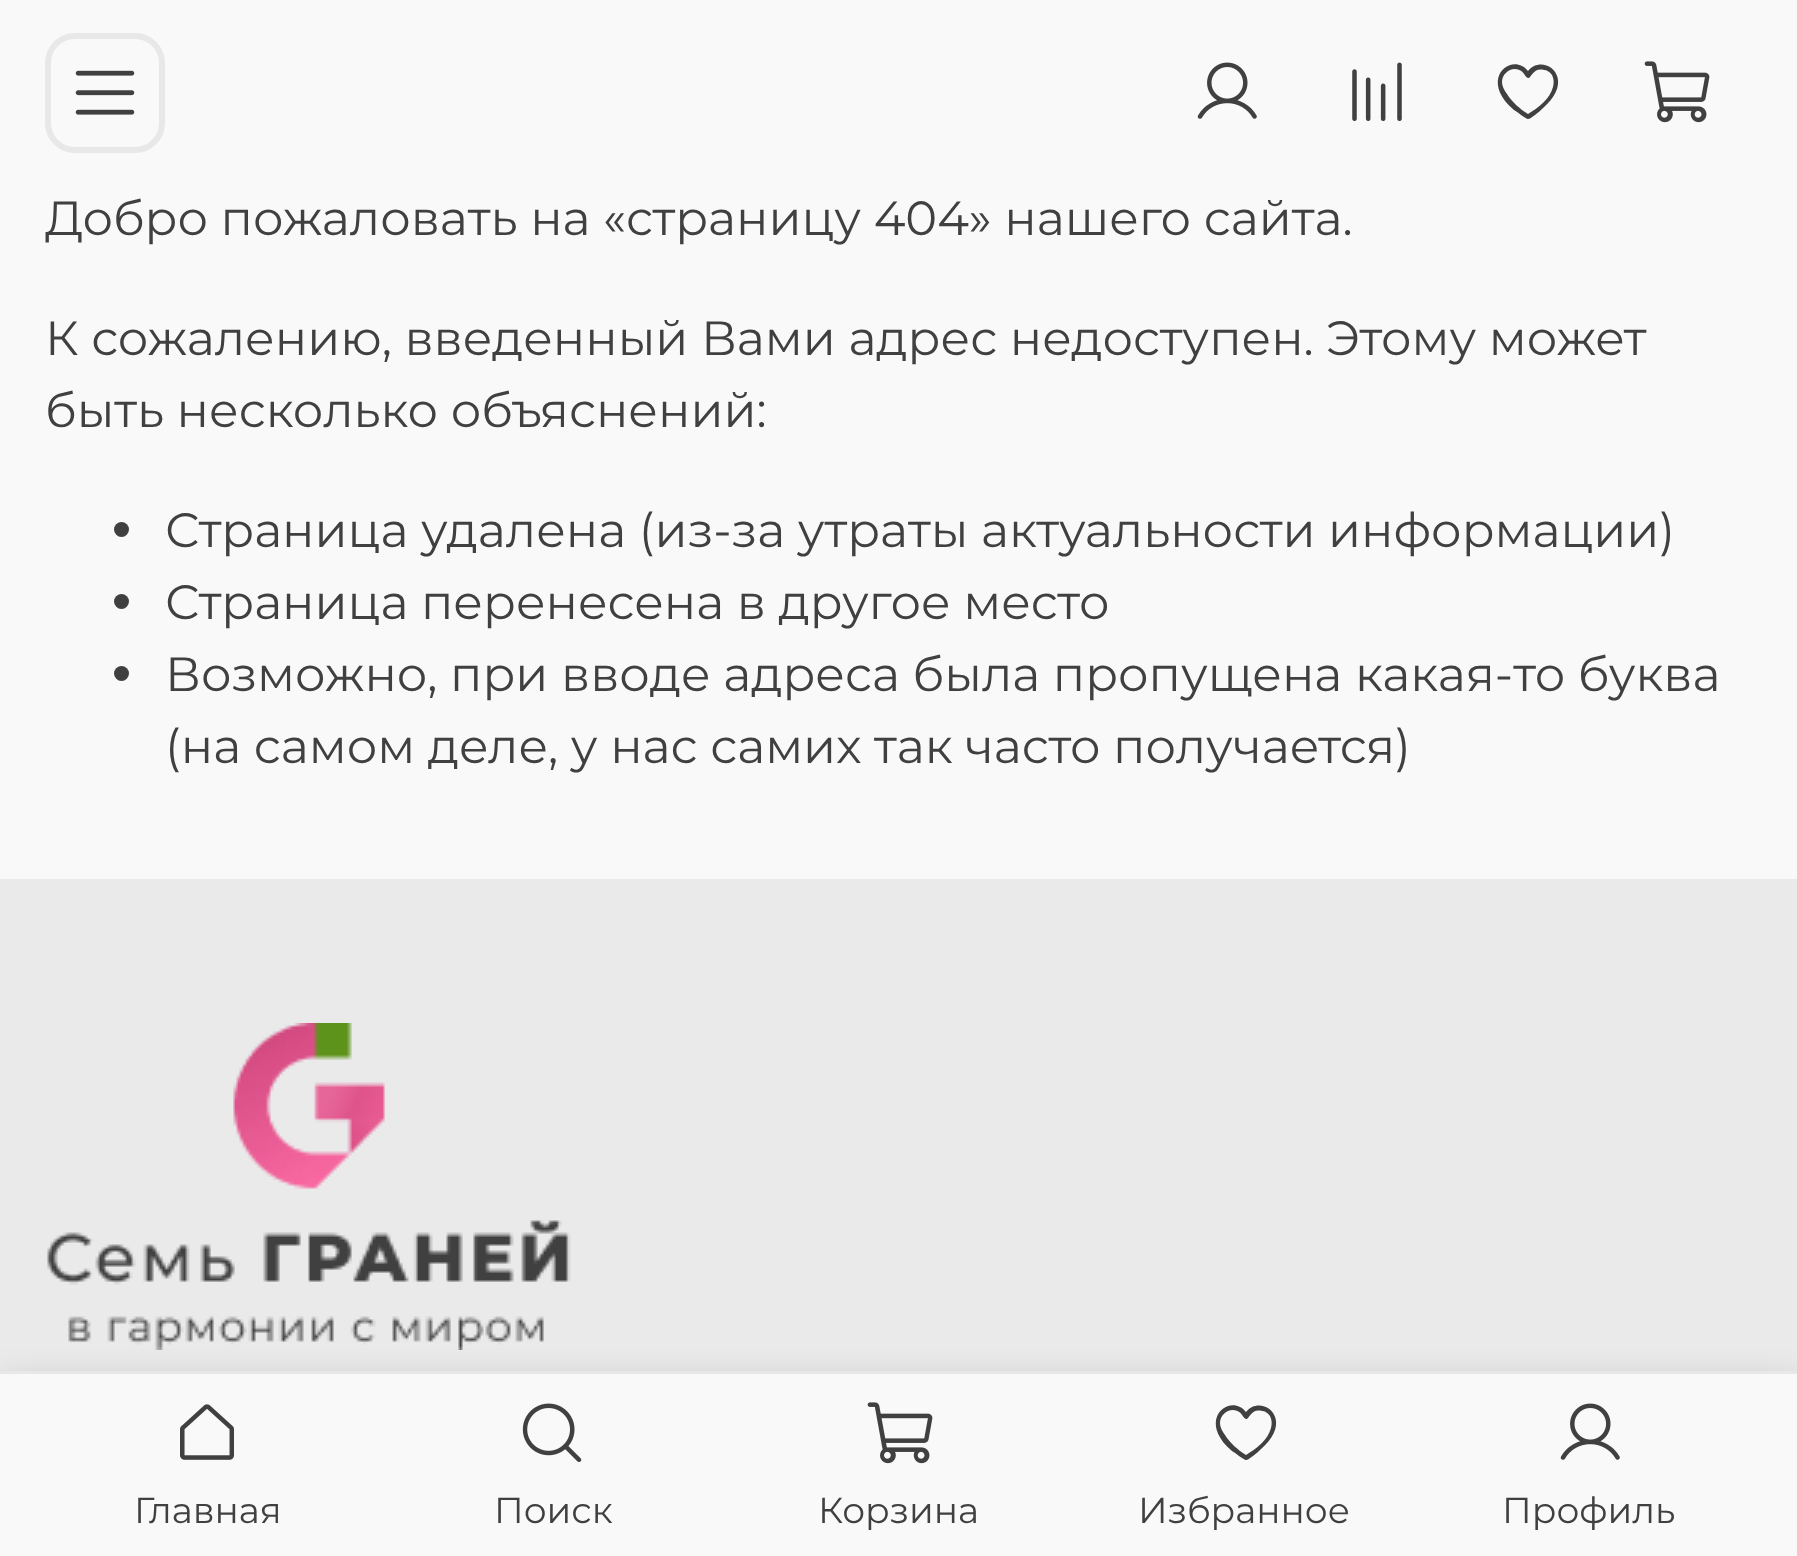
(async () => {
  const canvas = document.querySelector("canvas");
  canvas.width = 1797;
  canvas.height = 1556;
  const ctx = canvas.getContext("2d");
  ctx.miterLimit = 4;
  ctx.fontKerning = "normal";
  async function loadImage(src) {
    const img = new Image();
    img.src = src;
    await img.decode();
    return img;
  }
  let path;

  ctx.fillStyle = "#f9f9f9";
  ctx.fillRect(0, 0, 1797, 1556);
  ctx.beginPath();
  ctx.roundRect(48, 36, 114, 114, 27);
  ctx.strokeStyle = "#e8e8e8";
  ctx.lineWidth = 6;
  ctx.stroke();
  ctx.drawImage(await loadImage("img/1.png"), 75, 70, 60, 45);
  ctx.drawImage(await loadImage("img/2.png"), 1197, 62, 60, 57);
  ctx.drawImage(await loadImage("img/3.png"), 1352, 62, 50, 59);
  ctx.fillStyle = "#404040";
  path = new Path2D("M1528 119C1526 119 1516 111 1514 110C1477 78 1513 51 1528 71C1543 52 1579 78 1542 109C1540 111 1531 119 1528 119ZM1515 69C1508 69 1502 75 1502 82C1502 86 1504 90 1507 94C1512 102 1520 109 1528 114C1538 108 1550 99 1553 87C1554 83 1554 79 1552 75C1550 72 1547 70 1544 70C1533 67 1531 79 1528 78C1525 78 1524 69 1515 69Z");
  ctx.fill(path);
  ctx.drawImage(await loadImage("img/4.png"), 1644, 61, 66, 62);
  ctx.beginPath();
  ctx.arc(121.5, 529.5, 7.5, 0, Math.PI * 2);
  ctx.fill();
  ctx.beginPath();
  ctx.arc(121.5, 601.5, 7.5, 0, Math.PI * 2);
  ctx.fill();
  ctx.beginPath();
  ctx.arc(121.5, 673.5, 7.5, 0, Math.PI * 2);
  ctx.fill();
  ctx.fillStyle = "#eaeaea";
  ctx.fillRect(0, 879, 1797, 492);
  ctx.drawImage(await loadImage("img/5.png"), 47, 1023, 524, 327);
  ctx.fillStyle = "rgba(0, 0, 0, 0.12)";
  ctx.filter = "blur(15px)";
  ctx.beginPath();
  ctx.rect(0, 1377, 1797, 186);
  ctx.fill();
  ctx.filter = "none";
  ctx.fillStyle = "#f9f9f9";
  ctx.fillRect(0, 1374, 1797, 182);
  ctx.fillStyle = "#e8e8e8";
  ctx.fillRect(0, 1371, 1797, 3);
  ctx.drawImage(await loadImage("img/6.png"), 180, 1404, 54, 56);
  ctx.drawImage(await loadImage("img/7.png"), 522, 1403, 60, 59);
  ctx.drawImage(await loadImage("img/4.png"), 867, 1402, 66, 62);
  ctx.fillStyle = "#404040";
  path = new Path2D("M1246 1460C1244 1460 1234 1452 1232 1451C1195 1419 1231 1392 1246 1412C1261 1393 1297 1419 1260 1450C1258 1452 1249 1460 1246 1460ZM1233 1410C1226 1410 1220 1416 1220 1423C1220 1427 1222 1431 1225 1435C1230 1443 1238 1450 1246 1455C1256 1449 1268 1440 1271 1428C1272 1424 1272 1420 1270 1416C1268 1413 1265 1411 1262 1411C1251 1408 1249 1420 1246 1419C1243 1419 1242 1410 1233 1410Z");
  ctx.fill(path);
  ctx.drawImage(await loadImage("img/2.png"), 1560, 1403, 60, 57);
  ctx.font = "48px Montserrat";
  for (const [text, x, y] of [
    ["Добро пожаловать на «страницу 404» нашего сайта.", 45, 235],
    ["К сожалению, введенный Вами адрес недоступен. Этому может", 45, 355],
    ["быть несколько объяснений:", 45, 427],
    ["Страница удалена (из-за утраты актуальности информации)", 165, 547],
    ["Страница перенесена в другое место", 165, 619],
    ["Возможно, при вводе адреса была пропущена какая-то буква", 165, 691],
    ["(на самом деле, у нас самих так часто получается)", 165, 763],
  ]) {
    ctx.fillText(text, x, y);
  }
  ctx.font = "36px Montserrat";
  for (const [text, x, y] of [
    ["Главная", 134, 1523],
    ["Поиск", 494, 1523],
    ["Корзина", 818, 1523],
    ["Избранное", 1138, 1523],
    ["Профиль", 1502, 1523],
  ]) {
    ctx.fillText(text, x, y);
  }
})();
